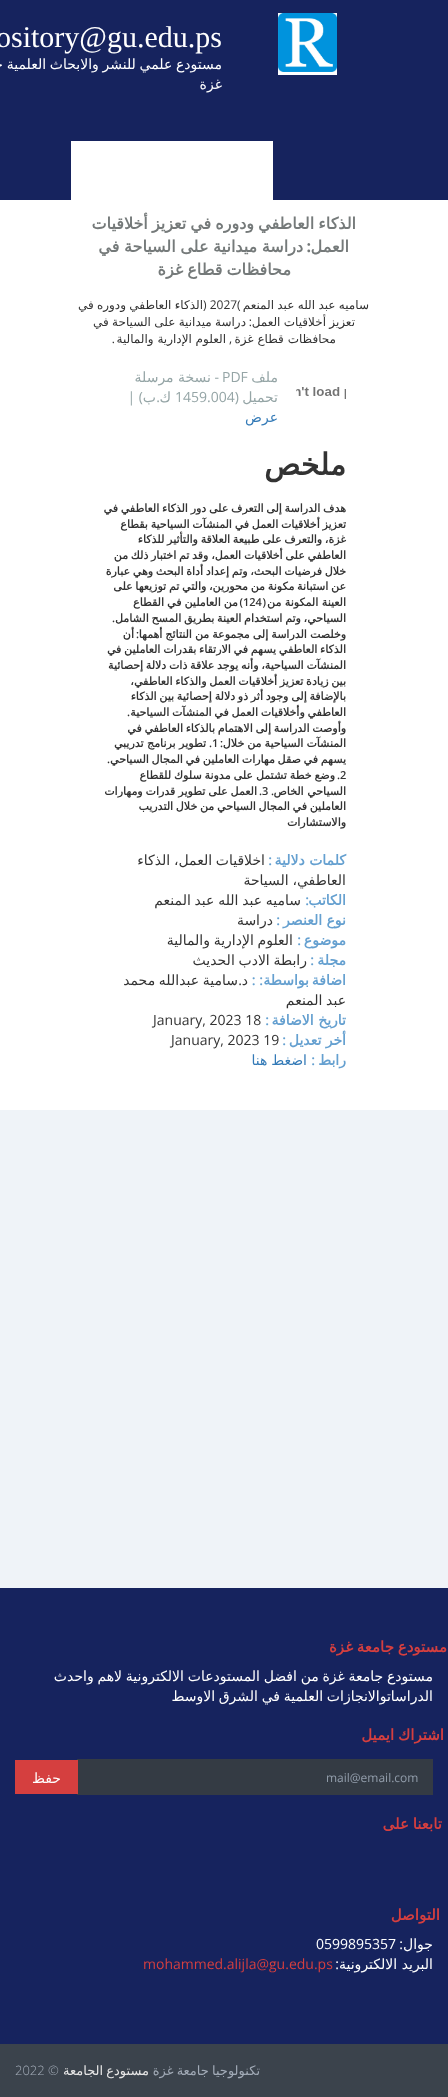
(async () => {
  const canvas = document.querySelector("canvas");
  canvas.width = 448;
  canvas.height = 2097;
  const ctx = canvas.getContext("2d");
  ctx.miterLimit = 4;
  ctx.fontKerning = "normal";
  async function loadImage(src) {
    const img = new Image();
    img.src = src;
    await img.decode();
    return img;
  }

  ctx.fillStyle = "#16235e";
  ctx.fillRect(0, 0, 448, 2097);
  ctx.fillStyle = "#ffffff";
  ctx.fillRect(278, 72, 59, 3);
  ctx.drawImage(await loadImage("img/1.png"), 278, 13, 59, 59);
  for (const [x, y, w, h, color] of [
    [71, 141, 202, 59, "#ffffff"],
    [0, 1110, 448, 478, "#eff3f8"],
    [0, 200, 448, 910, "#ffffff"],
  ]) {
    ctx.fillStyle = color;
    ctx.fillRect(x, y, w, h);
  }
  ctx.drawImage(await loadImage("img/2.png"), 296, 387, 50, 12);
  for (const [x, y, w, h, color] of [
    [77, 1759, 356, 36, "#343b44"],
    [15, 1760, 63, 34, "#d53f3f"],
    [0, 2044, 448, 53, "#3b434c"],
  ]) {
    ctx.fillStyle = color;
    ctx.fillRect(x, y, w, h);
  }
  ctx.font = "30px Liberation Serif";
  ctx.fillStyle = "#ffffff";
  ctx.fillText("ository@gu.edu.ps", -4, 47);
  ctx.wordSpacing = "-0.75px";
  ctx.direction = "rtl";
  ctx.font = "14px DejaVu Sans";
  ctx.fillText("مستودع علمي للنشر والابحاث العلمية جامعة", 222, 69);
  ctx.wordSpacing = "0px";
  ctx.fillText("غزة", 222, 89);
  ctx.wordSpacing = "-1px";
  ctx.font = "bold 16px DejaVu Sans";
  ctx.fillStyle = "#757a7a";
  ctx.fillText("الذكاء العاطفي ودوره في تعزيز أخلاقيات", 356, 229);
  ctx.wordSpacing = "0px";
  ctx.fillText("العمل", 349, 252);
  ctx.font = "bold 16px Open Sans";
  ctx.fillText(":", 311, 252);
  ctx.wordSpacing = "-0.5px";
  ctx.font = "bold 16px DejaVu Sans";
  ctx.fillText("دراسة ميدانية على السياحة في", 303, 252);
  ctx.wordSpacing = "-1px";
  ctx.fillText("محافظات قطاع غزة", 291, 275);
  ctx.wordSpacing = "-0.5px";
  ctx.font = "12px DejaVu Sans";
  ctx.fillStyle = "#333333";
  ctx.fillText("ساميه عبد الله عبد المنعم", 369, 309);
  ctx.wordSpacing = "0px";
  ctx.direction = "ltr";
  ctx.font = "12px Open Sans";
  ctx.fillText(") 2027(", 203, 309);
  ctx.wordSpacing = "-0.5px";
  ctx.direction = "rtl";
  ctx.font = "12px DejaVu Sans";
  ctx.fillText("الذكاء العاطفي ودوره في", 203, 309);
  ctx.fillText("تعزيز أخلاقيات العمل", 355, 326);
  ctx.wordSpacing = "0px";
  ctx.font = "12px Open Sans";
  ctx.fillText(":", 252, 326);
  ctx.wordSpacing = "-0.5px";
  ctx.font = "12px DejaVu Sans";
  ctx.fillText("دراسة ميدانية على السياحة في", 246, 326);
  ctx.wordSpacing = "0px";
  ctx.fillText("محافظات قطاع غزة", 336, 343);
  ctx.font = "12px Open Sans";
  ctx.fillText(",", 232, 343);
  ctx.font = "12px DejaVu Sans";
  ctx.fillText("العلوم الإدارية والمالية", 226, 343);
  ctx.font = "12px Open Sans";
  ctx.fillText(".", 115, 343);
  ctx.font = "14px DejaVu Sans";
  ctx.fillStyle = "#95a5a6";
  ctx.fillText("ملف", 278, 382);
  ctx.direction = "ltr";
  ctx.font = "14px Open Sans";
  ctx.fillText("PDF", 222, 382);
  ctx.direction = "rtl";
  ctx.fillText("-", 219, 382);
  ctx.font = "14px DejaVu Sans";
  ctx.fillText("نسخة مرسلة", 211, 382);
  ctx.fillText("تحميل", 278, 402);
  ctx.font = "14px Open Sans";
  ctx.fillText("(", 239, 402);
  ctx.direction = "ltr";
  ctx.fillText("1459.004", 175, 402);
  ctx.direction = "rtl";
  ctx.font = "14px DejaVu Sans";
  ctx.fillText("ك", 171, 402);
  ctx.font = "14px Open Sans";
  ctx.fillText(".", 160, 402);
  ctx.font = "14px DejaVu Sans";
  ctx.fillText("ب", 156, 402);
  ctx.font = "14px Open Sans";
  ctx.fillText(") |", 143, 402);
  ctx.font = "14px DejaVu Sans";
  ctx.fillStyle = "#337ab7";
  ctx.fillText("عرض", 278, 422);
  ctx.font = "bold 30px DejaVu Sans";
  ctx.fillStyle = "#333333";
  ctx.fillText("ملخص", 346, 475);
  ctx.wordSpacing = "-0.75px";
  ctx.font = "bold 11px DejaVu Sans";
  for (const [text, x, y] of [
    ["هدف الدراسة إلى التعرف على دور الذكاء العاطفي في", 346, 512],
    ["تعزيز أخلاقيات العمل في المنشآت السياحية بقطاع", 346, 528],
    ["غزة، والتعرف على طبيعة العلاقة والتأثير للذكاء", 346, 543],
    ["العاطفي على أخلاقيات العمل، وقد تم اختبار ذلك من", 346, 559],
    ["خلال فرضيات البحث، وتم إعداد أداة البحث وهي عبارة", 346, 575],
    ["عن استبانة مكونة من محورين، والتي تم توزيعها على", 346, 590],
  ]) {
    ctx.fillText(text, x, y);
  }
  ctx.wordSpacing = "0px";
  ctx.fillText("العينة المكونة من", 346, 606);
  ctx.direction = "ltr";
  ctx.font = "600 11px Open Sans";
  ctx.fillText("124", 243, 606);
  ctx.direction = "rtl";
  ctx.fillText("(", 266, 606);
  ctx.fillText(")", 243, 606);
  ctx.wordSpacing = "-0.5px";
  ctx.font = "bold 11px DejaVu Sans";
  ctx.fillText("من العاملين في القطاع", 238, 606);
  ctx.wordSpacing = "-0.75px";
  ctx.fillText("السياحي، وتم استخدام العينة بطريق المسح الشامل", 346, 622);
  ctx.wordSpacing = "0px";
  ctx.font = "600 11px Open Sans";
  ctx.fillText(".", 115, 622);
  ctx.wordSpacing = "-0.5px";
  ctx.font = "bold 11px DejaVu Sans";
  ctx.fillText("وخلصت الدراسة إلى مجموعة من النتائج أهمها", 346, 638);
  ctx.wordSpacing = "0px";
  ctx.font = "600 11px Open Sans";
  ctx.fillText(":", 139, 638);
  ctx.font = "bold 11px DejaVu Sans";
  ctx.fillText("أن", 134, 638);
  ctx.wordSpacing = "-0.75px";
  for (const [text, x, y] of [
    ["الذكاء العاطفي يسهم في الارتقاء بقدرات العاملين في", 346, 653],
    ["المنشآت السياحية، وأنه يوجد علاقة ذات دلالة إحصائية", 346, 669],
    ["بين زيادة تعزيز أخلاقيات العمل والذكاء العاطفي،", 346, 685],
    ["بالإضافة إلى وجود أثر ذو دلالة إحصائية بين الذكاء", 346, 700],
    ["العاطفي وأخلاقيات العمل في المنشآت السياحية", 346, 716],
  ]) {
    ctx.fillText(text, x, y);
  }
  ctx.wordSpacing = "0px";
  ctx.font = "600 11px Open Sans";
  ctx.fillText(".", 130, 716);
  ctx.wordSpacing = "-0.75px";
  ctx.font = "bold 11px DejaVu Sans";
  ctx.fillText("وأوصت الدراسة إلى الاهتمام بالذكاء العاطفي في", 346, 732);
  ctx.wordSpacing = "-0.5px";
  ctx.fillText("المنشآت السياحية من خلال", 346, 747);
  ctx.wordSpacing = "0px";
  ctx.font = "600 11px Open Sans";
  ctx.fillText(":", 223, 747);
  ctx.direction = "ltr";
  ctx.fillText("1", 212, 747);
  ctx.direction = "rtl";
  ctx.fillText(".", 212, 747);
  ctx.font = "bold 11px DejaVu Sans";
  ctx.fillText("تطوير برنامج تدريبي", 206, 747);
  ctx.wordSpacing = "-0.75px";
  ctx.fillText("يسهم في صقل مهارات العاملين في المجال السياحي", 346, 763);
  ctx.wordSpacing = "0px";
  ctx.font = "600 11px Open Sans";
  ctx.fillText(".", 110, 763);
  ctx.direction = "ltr";
  ctx.fillText("2", 340, 779);
  ctx.wordSpacing = "-0.5px";
  ctx.direction = "rtl";
  ctx.font = "bold 11px DejaVu Sans";
  ctx.fillText("وضع خطة تشتمل على مدونة سلوك للقطاع", 335, 779);
  ctx.wordSpacing = "0px";
  ctx.font = "600 11px Open Sans";
  ctx.fillText(".", 340, 779);
  ctx.font = "bold 11px DejaVu Sans";
  ctx.fillText("السياحي الخاص", 346, 795);
  ctx.font = "600 11px Open Sans";
  ctx.fillText(".", 274, 795);
  ctx.direction = "ltr";
  ctx.fillText("3", 262, 795);
  ctx.direction = "rtl";
  ctx.fillText(".", 262, 795);
  ctx.wordSpacing = "-0.5px";
  ctx.font = "bold 11px DejaVu Sans";
  ctx.fillText("العمل على تطوير قدرات ومهارات", 257, 795);
  ctx.wordSpacing = "-0.75px";
  ctx.fillText("العاملين في المجال السياحي من خلال التدريب", 346, 810);
  ctx.wordSpacing = "0px";
  ctx.fillText("والاستشارات", 346, 826);
  ctx.font = "bold 14px DejaVu Sans";
  ctx.fillStyle = "#65a0d0";
  ctx.fillText("كلمات دلالية", 346, 865);
  ctx.font = "600 14px Open Sans";
  ctx.fillText(":", 272, 865);
  ctx.wordSpacing = "-0.75px";
  ctx.font = "14px DejaVu Sans";
  ctx.fillStyle = "#333333";
  ctx.fillText("اخلاقيات العمل، الذكاء", 265, 865);
  ctx.fillText("العاطفي، السياحة", 346, 885);
  ctx.wordSpacing = "0px";
  ctx.font = "bold 14px DejaVu Sans";
  ctx.fillStyle = "#65a0d0";
  ctx.fillText("الكاتب", 346, 905);
  ctx.font = "600 14px Open Sans";
  ctx.fillText(":", 309, 905);
  ctx.wordSpacing = "-0.75px";
  ctx.font = "14px DejaVu Sans";
  ctx.fillStyle = "#333333";
  ctx.fillText("ساميه عبد الله عبد المنعم", 301, 905);
  ctx.wordSpacing = "0px";
  ctx.font = "bold 14px DejaVu Sans";
  ctx.fillStyle = "#65a0d0";
  ctx.fillText("نوع العنصر", 346, 925);
  ctx.font = "600 14px Open Sans";
  ctx.fillText(":", 280, 925);
  ctx.font = "14px DejaVu Sans";
  ctx.fillStyle = "#333333";
  ctx.fillText("دراسة", 273, 925);
  ctx.font = "bold 14px DejaVu Sans";
  ctx.fillStyle = "#65a0d0";
  ctx.fillText("موضوع", 346, 945);
  ctx.font = "600 14px Open Sans";
  ctx.fillText(":", 301, 945);
  ctx.wordSpacing = "-0.75px";
  ctx.font = "14px DejaVu Sans";
  ctx.fillStyle = "#333333";
  ctx.fillText("العلوم الإدارية والمالية", 293, 945);
  ctx.wordSpacing = "0px";
  ctx.font = "bold 14px DejaVu Sans";
  ctx.fillStyle = "#65a0d0";
  ctx.fillText("مجلة", 346, 965);
  ctx.font = "600 14px Open Sans";
  ctx.fillText(":", 314, 965);
  ctx.wordSpacing = "-0.75px";
  ctx.font = "14px DejaVu Sans";
  ctx.fillStyle = "#333333";
  ctx.fillText("رابطة الادب الحديث", 307, 965);
  ctx.wordSpacing = "0px";
  ctx.font = "bold 14px DejaVu Sans";
  ctx.fillStyle = "#65a0d0";
  ctx.fillText("اضافة", 346, 985);
  ctx.fillText("بواسطة", 309, 985);
  ctx.font = "600 14px Open Sans";
  ctx.fillText(": :", 263, 985);
  ctx.font = "14px DejaVu Sans";
  ctx.fillStyle = "#333333";
  ctx.fillText("د", 248, 985);
  ctx.wordSpacing = "-0.75px";
  ctx.fillText("سامية عبدالله محمد", 238, 985);
  ctx.wordSpacing = "0px";
  ctx.font = "14px Open Sans";
  ctx.fillText(".", 242, 985);
  ctx.wordSpacing = "-0.75px";
  ctx.font = "14px DejaVu Sans";
  ctx.fillText("عبد المنعم", 346, 1005);
  ctx.wordSpacing = "0px";
  ctx.font = "bold 14px DejaVu Sans";
  ctx.fillStyle = "#65a0d0";
  ctx.fillText("تاريخ الاضافة", 346, 1025);
  ctx.font = "600 14px Open Sans";
  ctx.fillText(":", 269, 1025);
  ctx.direction = "ltr";
  ctx.font = "14px Open Sans";
  ctx.fillStyle = "#333333";
  ctx.fillText("January, 2023 18", 153, 1025);
  ctx.direction = "rtl";
  ctx.font = "bold 14px DejaVu Sans";
  ctx.fillStyle = "#65a0d0";
  ctx.fillText("أخر تعديل", 346, 1045);
  ctx.font = "600 14px Open Sans";
  ctx.fillText(":", 286, 1045);
  ctx.direction = "ltr";
  ctx.font = "14px Open Sans";
  ctx.fillStyle = "#333333";
  ctx.fillText("January, 2023 19", 171, 1045);
  ctx.direction = "rtl";
  ctx.font = "bold 14px DejaVu Sans";
  ctx.fillStyle = "#65a0d0";
  ctx.fillText("رابط", 346, 1065);
  ctx.font = "600 14px Open Sans";
  ctx.fillText(":", 315, 1065);
  ctx.wordSpacing = "-0.75px";
  ctx.font = "14px DejaVu Sans";
  ctx.fillStyle = "#337ab7";
  ctx.fillText("اضغط هنا", 307, 1065);
  ctx.letterSpacing = "1px";
  ctx.wordSpacing = "-2px";
  ctx.font = "bold 15px DejaVu Sans";
  ctx.fillStyle = "#d53f3f";
  ctx.fillText("مستودع جامعة غزة", 447, 1652);
  ctx.letterSpacing = "0px";
  ctx.wordSpacing = "-0.75px";
  ctx.font = "14px DejaVu Sans";
  ctx.fillStyle = "#ffffff";
  ctx.fillText("مستودع جامعة غزة من افضل المستودعات الالكترونية لاهم واحدث", 433, 1681);
  ctx.fillText("الدراساتوالانجازات العلمية في الشرق الاوسط", 433, 1701);
  ctx.letterSpacing = "1px";
  ctx.wordSpacing = "-2px";
  ctx.font = "bold 15px DejaVu Sans";
  ctx.fillStyle = "#d53f3f";
  ctx.fillText("اشتراك ايميل", 444, 1740);
  ctx.letterSpacing = "0px";
  ctx.wordSpacing = "0px";
  ctx.direction = "ltr";
  ctx.font = "12px Open Sans";
  ctx.fillStyle = "#939eac";
  ctx.fillText("mail@email.com", 326, 1782);
  ctx.direction = "rtl";
  ctx.font = "14px DejaVu Sans";
  ctx.fillStyle = "#ffffff";
  ctx.fillText("حفظ", 61, 1783);
  ctx.letterSpacing = "1px";
  ctx.wordSpacing = "-2px";
  ctx.font = "bold 15px DejaVu Sans";
  ctx.fillStyle = "#d53f3f";
  ctx.fillText("تابعنا على", 442, 1829);
  ctx.wordSpacing = "0px";
  ctx.fillText("التواصل", 440, 1920);
  ctx.letterSpacing = "0px";
  ctx.font = "14px DejaVu Sans";
  ctx.fillStyle = "#ffffff";
  ctx.fillText("جوال", 433, 1949);
  ctx.font = "14px Open Sans";
  ctx.fillText(":", 403, 1949);
  ctx.direction = "ltr";
  ctx.fillText("0599895357", 316, 1949);
  ctx.direction = "rtl";
  ctx.font = "14px DejaVu Sans";
  ctx.fillText("البريد الالكترونية", 433, 1969);
  ctx.font = "14px Open Sans";
  ctx.fillText(":", 339, 1969);
  ctx.direction = "ltr";
  ctx.fillStyle = "#d53f3f";
  ctx.fillText("mohammed.alijla@gu.edu.ps", 143, 1969);
  ctx.wordSpacing = "-1px";
  ctx.direction = "rtl";
  ctx.font = "13px DejaVu Sans";
  ctx.fillStyle = "#a2abb7";
  ctx.fillText("تكنولوجيا جامعة غزة", 260, 2075);
  ctx.fillStyle = "#e6e6e6";
  ctx.fillText("مستودع الجامعة", 149, 2075);
  ctx.wordSpacing = "0px";
  ctx.direction = "ltr";
  ctx.font = "300 13px Open Sans";
  ctx.fillStyle = "#a2abb7";
  ctx.fillText("2022 ©", 15, 2075);
})();
